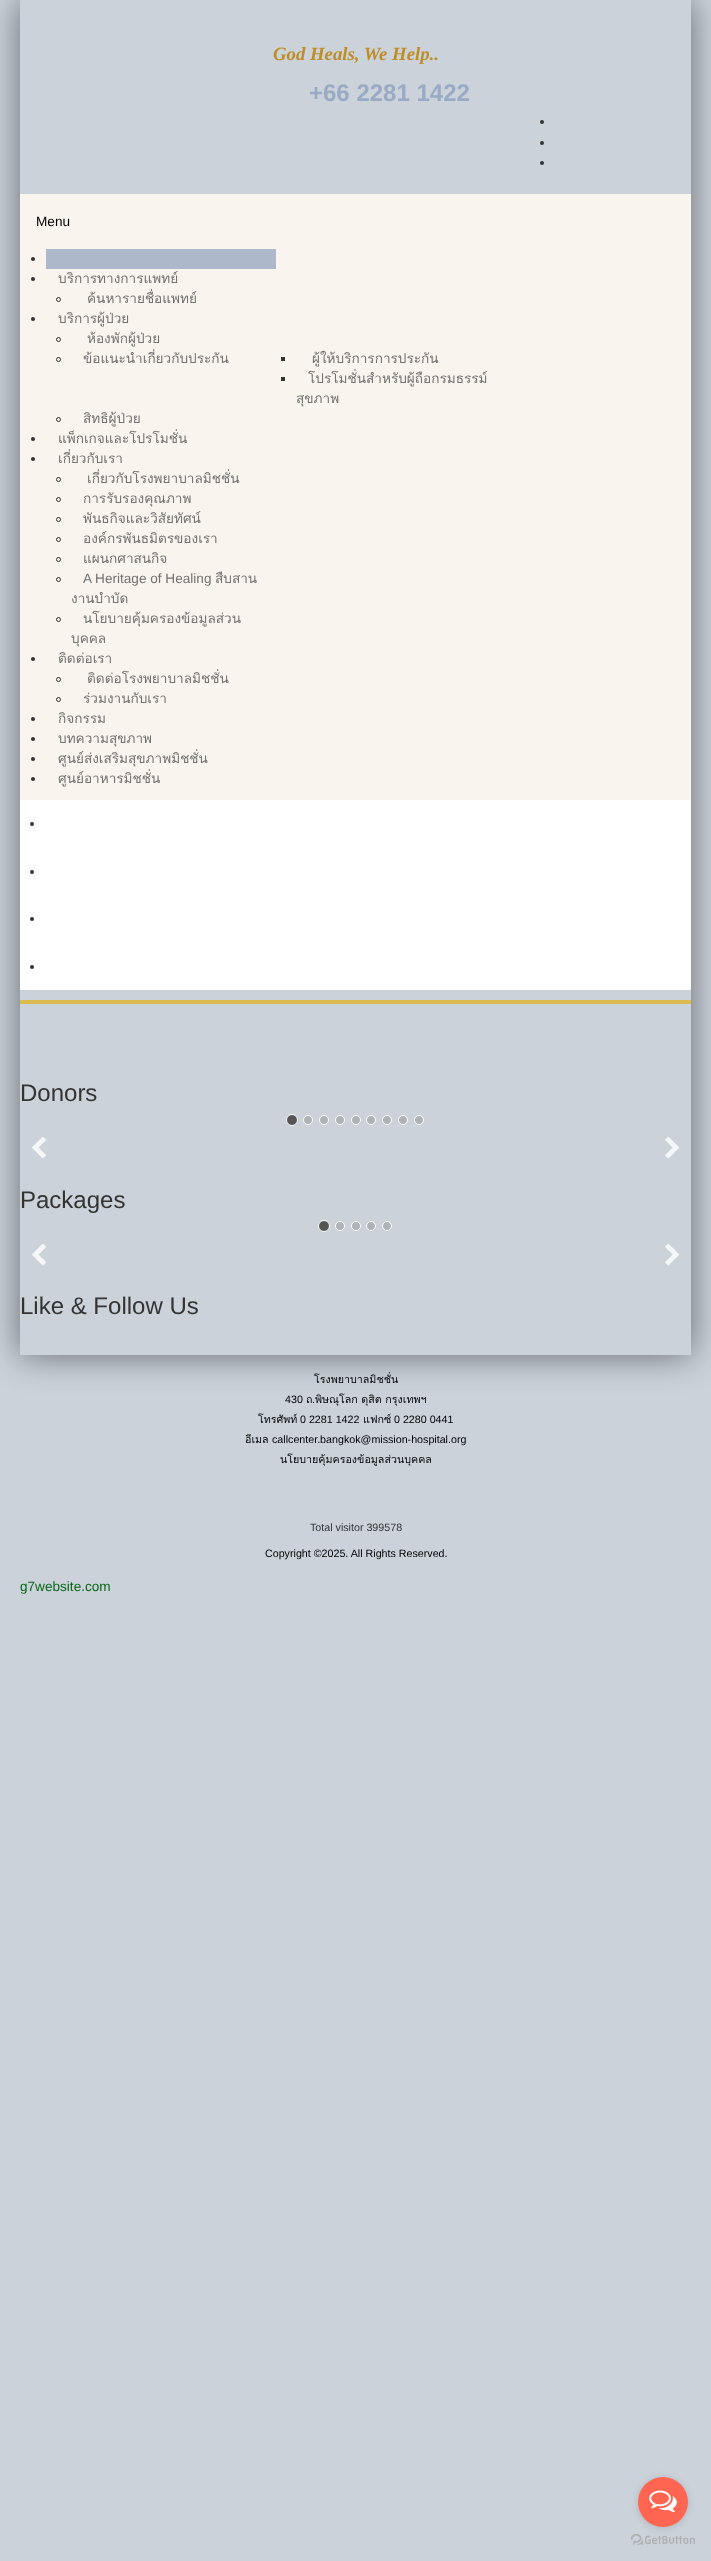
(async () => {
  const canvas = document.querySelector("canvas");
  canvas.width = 711;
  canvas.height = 2561;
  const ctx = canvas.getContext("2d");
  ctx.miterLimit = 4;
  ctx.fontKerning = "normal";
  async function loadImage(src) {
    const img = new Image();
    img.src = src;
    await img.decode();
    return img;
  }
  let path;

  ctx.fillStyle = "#cbd2da";
  ctx.fillRect(0, 0, 711, 2561);
  ctx.save();
  path = new Path2D("M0 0H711V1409H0ZM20 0H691V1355H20Z");
  ctx.clip(path, "evenodd");
  ctx.fillStyle = "rgba(0, 0, 0, 0.5)";
  ctx.filter = "blur(17.5px)";
  ctx.beginPath();
  ctx.rect(20, 0, 671, 1355);
  ctx.fill();
  ctx.filter = "none";
  ctx.restore();
  ctx.fillStyle = "#333333";
  ctx.beginPath();
  ctx.arc(542, 122, 2, 0, Math.PI * 2);
  ctx.fill();
  ctx.beginPath();
  ctx.arc(542, 143, 2, 0, Math.PI * 2);
  ctx.fill();
  ctx.beginPath();
  ctx.arc(542, 163, 2, 0, Math.PI * 2);
  ctx.fill();
  ctx.fillStyle = "#f9f4ee";
  ctx.fillRect(20, 194, 671, 606);
  ctx.fillStyle = "#adb9ca";
  ctx.fillRect(46, 249, 230, 20);
  ctx.fillStyle = "#333333";
  ctx.beginPath();
  ctx.arc(33, 259, 2, 0, Math.PI * 2);
  ctx.fill();
  ctx.beginPath();
  ctx.arc(33, 279, 2, 0, Math.PI * 2);
  ctx.fill();
  ctx.beginPath();
  ctx.arc(58.5, 299.5, 2, 0, Math.PI * 2);
  ctx.strokeStyle = "#333333";
  ctx.stroke();
  ctx.beginPath();
  ctx.arc(33, 319, 2, 0, Math.PI * 2);
  ctx.fill();
  ctx.beginPath();
  ctx.arc(58.5, 339.5, 2, 0, Math.PI * 2);
  ctx.stroke();
  ctx.beginPath();
  ctx.arc(58.5, 359.5, 2, 0, Math.PI * 2);
  ctx.stroke();
  ctx.fillRect(281, 357, 4, 4);
  ctx.fillRect(281, 377, 4, 4);
  ctx.beginPath();
  ctx.arc(58.5, 419.5, 2, 0, Math.PI * 2);
  ctx.stroke();
  ctx.beginPath();
  ctx.arc(33, 439, 2, 0, Math.PI * 2);
  ctx.fill();
  ctx.beginPath();
  ctx.arc(33, 459, 2, 0, Math.PI * 2);
  ctx.fill();
  ctx.beginPath();
  ctx.arc(58.5, 479.5, 2, 0, Math.PI * 2);
  ctx.stroke();
  ctx.beginPath();
  ctx.arc(58.5, 499.5, 2, 0, Math.PI * 2);
  ctx.stroke();
  ctx.beginPath();
  ctx.arc(58.5, 519.5, 2, 0, Math.PI * 2);
  ctx.stroke();
  ctx.beginPath();
  ctx.arc(58.5, 539.5, 2, 0, Math.PI * 2);
  ctx.stroke();
  ctx.beginPath();
  ctx.arc(58.5, 559.5, 2, 0, Math.PI * 2);
  ctx.stroke();
  ctx.beginPath();
  ctx.arc(58.5, 579.5, 2, 0, Math.PI * 2);
  ctx.stroke();
  ctx.beginPath();
  ctx.arc(58.5, 619.5, 2, 0, Math.PI * 2);
  ctx.stroke();
  ctx.beginPath();
  ctx.arc(33, 659, 2, 0, Math.PI * 2);
  ctx.fill();
  ctx.beginPath();
  ctx.arc(58.5, 679.5, 2, 0, Math.PI * 2);
  ctx.stroke();
  ctx.beginPath();
  ctx.arc(58.5, 699.5, 2, 0, Math.PI * 2);
  ctx.stroke();
  ctx.beginPath();
  ctx.arc(33, 719, 2, 0, Math.PI * 2);
  ctx.fill();
  ctx.beginPath();
  ctx.arc(33, 739, 2, 0, Math.PI * 2);
  ctx.fill();
  ctx.beginPath();
  ctx.arc(33, 759, 2, 0, Math.PI * 2);
  ctx.fill();
  ctx.beginPath();
  ctx.arc(33, 779, 2, 0, Math.PI * 2);
  ctx.fill();
  ctx.fillStyle = "#dcbb50";
  ctx.fillRect(20, 1000, 671, 4);
  ctx.fillStyle = "#ffffff";
  ctx.fillRect(20, 800, 671, 190);
  ctx.fillStyle = "#333333";
  ctx.beginPath();
  ctx.arc(32, 824, 2, 0, Math.PI * 2);
  ctx.fill();
  ctx.beginPath();
  ctx.arc(32, 872, 2, 0, Math.PI * 2);
  ctx.fill();
  ctx.beginPath();
  ctx.arc(32, 919, 2, 0, Math.PI * 2);
  ctx.fill();
  ctx.beginPath();
  ctx.arc(32, 967, 2, 0, Math.PI * 2);
  ctx.fill();
  ctx.fillStyle = "#555555";
  ctx.beginPath();
  ctx.arc(292, 1120, 5.5, 0, Math.PI * 2);
  ctx.fill();
  ctx.strokeStyle = "#ffffff";
  ctx.stroke();
  ctx.fillStyle = "#afb2b6";
  ctx.beginPath();
  ctx.arc(308, 1120, 4.5, 0, Math.PI * 2);
  ctx.fill();
  ctx.stroke();
  ctx.beginPath();
  ctx.arc(324, 1120, 4.5, 0, Math.PI * 2);
  ctx.fill();
  ctx.stroke();
  ctx.beginPath();
  ctx.arc(340, 1120, 4.5, 0, Math.PI * 2);
  ctx.fill();
  ctx.stroke();
  ctx.beginPath();
  ctx.arc(356, 1120, 4.5, 0, Math.PI * 2);
  ctx.fill();
  ctx.stroke();
  ctx.beginPath();
  ctx.arc(371, 1120, 4.5, 0, Math.PI * 2);
  ctx.fill();
  ctx.stroke();
  ctx.beginPath();
  ctx.arc(387, 1120, 4.5, 0, Math.PI * 2);
  ctx.fill();
  ctx.stroke();
  ctx.beginPath();
  ctx.arc(403, 1120, 4.5, 0, Math.PI * 2);
  ctx.fill();
  ctx.stroke();
  ctx.beginPath();
  ctx.arc(419, 1120, 4.5, 0, Math.PI * 2);
  ctx.fill();
  ctx.stroke();
  ctx.drawImage(await loadImage("img/1.png"), 32, 1137, 14, 22);
  ctx.drawImage(await loadImage("img/2.png"), 665, 1136, 14, 23);
  ctx.fillStyle = "#555555";
  ctx.beginPath();
  ctx.arc(324, 1226, 5.5, 0, Math.PI * 2);
  ctx.fill();
  ctx.stroke();
  ctx.fillStyle = "#afb2b6";
  ctx.beginPath();
  ctx.arc(340, 1226, 4.5, 0, Math.PI * 2);
  ctx.fill();
  ctx.stroke();
  ctx.beginPath();
  ctx.arc(356, 1226, 4.5, 0, Math.PI * 2);
  ctx.fill();
  ctx.stroke();
  ctx.beginPath();
  ctx.arc(371, 1226, 4.5, 0, Math.PI * 2);
  ctx.fill();
  ctx.stroke();
  ctx.beginPath();
  ctx.arc(387, 1226, 4.5, 0, Math.PI * 2);
  ctx.fill();
  ctx.stroke();
  ctx.drawImage(await loadImage("img/1.png"), 32, 1244, 14, 22);
  ctx.drawImage(await loadImage("img/2.png"), 665, 1243, 14, 23);
  ctx.drawImage(await loadImage("img/4.png"), 631, 2534, 64, 11);
  ctx.fillStyle = "rgba(136, 136, 136, 0.4)";
  ctx.filter = "blur(3.5px)";
  ctx.beginPath();
  ctx.roundRect(638, 2478, 50, 50, 25);
  ctx.fill();
  ctx.filter = "none";
  ctx.fillStyle = "#ff6550";
  ctx.beginPath();
  ctx.arc(663, 2502, 25, 0, Math.PI * 2);
  ctx.fill();
  ctx.drawImage(await loadImage("img/3.png"), 649, 2490, 28, 23);
  ctx.font = "italic bold 18.75px Liberation Serif";
  ctx.fillStyle = "#be8d27";
  ctx.fillText("God Heals, We Help..", 273, 60);
  ctx.font = "bold 24px Liberation Sans";
  ctx.fillStyle = "#98aac4";
  ctx.fillText("+66 2281 1422", 309, 101);
  ctx.font = "13.6px Liberation Sans";
  ctx.fillStyle = "#000000";
  ctx.fillText("Menu", 36, 226);
  ctx.font = "13.6px Loma";
  ctx.fillStyle = "#727272";
  for (const [text, x, y] of [
    ["บริการทางการแพทย์", 58, 283],
    ["ค้นหารายชื่อแพทย์", 87, 303],
    ["บริการผู้ป่วย", 58, 323],
    ["ห้องพักผู้ป่วย", 87, 343],
    ["ข้อแนะนำเกี่ยวกับประกัน", 83, 363],
    ["ผู้ให้บริการการประกัน", 312, 363],
    ["โปรโมชั่นสำหรับผู้ถือกรมธรรม์", 308, 383],
    ["สุขภาพ", 296, 403],
    ["สิทธิผู้ป่วย", 83, 423],
    ["แพ็กเกจและโปรโมชั่น", 58, 443],
    ["เกี่ยวกับเรา", 58, 463],
    ["เกี่ยวกับโรงพยาบาลมิชชั่น", 87, 483],
    ["การรับรองคุณภาพ", 83, 503],
    ["พันธกิจและวิสัยทัศน์", 83, 523],
    ["องค์กรพันธมิตรของเรา", 83, 543],
    ["แผนกศาสนกิจ", 83, 563],
  ]) {
    ctx.fillText(text, x, y);
  }
  ctx.font = "13.6px Liberation Sans";
  ctx.fillText("A Heritage of Healing", 83, 583);
  ctx.font = "13.6px Loma";
  for (const [text, x, y] of [
    ["สืบสาน", 215, 583],
    ["งานบำบัด", 71, 603],
    ["นโยบายคุ้มครองข้อมูลส่วน", 83, 623],
    ["บุคคล", 71, 643],
    ["ติดต่อเรา", 58, 663],
    ["ติดต่อโรงพยาบาลมิชชั่น", 87, 683],
    ["ร่วมงานกับเรา", 83, 703],
    ["กิจกรรม", 58, 723],
    ["บทความสุขภาพ", 58, 743],
    ["ศูนย์ส่งเสริมสุขภาพมิชชั่น", 58, 763],
    ["ศูนย์อาหารมิชชั่น", 58, 783],
  ]) {
    ctx.fillText(text, x, y);
  }
  ctx.font = "24px Liberation Sans";
  ctx.fillStyle = "#333333";
  for (const [text, x, y] of [
    ["Donors", 20, 1101],
    ["Packages", 20, 1208],
    ["Like & Follow Us", 20, 1314],
  ]) {
    ctx.fillText(text, x, y);
  }
  ctx.font = "10.7px Loma";
  ctx.fillStyle = "#000000";
  ctx.fillText("โรงพยาบาลมิชชั่น", 314, 1383);
  ctx.font = "10.7px Liberation Sans";
  ctx.fillText("430", 285, 1403);
  ctx.font = "10.7px Loma";
  ctx.fillText("ถ", 306, 1403);
  ctx.font = "10.7px Liberation Sans";
  ctx.fillText(".", 312, 1403);
  ctx.font = "10.7px Loma";
  ctx.fillText("พิษณุโลก ดุสิต กรุงเทพฯ", 315, 1403);
  ctx.fillText("โทรศัพท์", 258, 1423);
  ctx.font = "10.7px Liberation Sans";
  ctx.fillText("0 2281 1422", 300, 1423);
  ctx.font = "10.7px Loma";
  ctx.fillText("แฟกซ์", 363, 1423);
  ctx.font = "10.7px Liberation Sans";
  ctx.fillText("0 2280 0441", 394, 1423);
  ctx.font = "10.7px Loma";
  ctx.fillText("อีเมล", 245, 1443);
  ctx.font = "10.7px Liberation Sans";
  ctx.fillText("callcenter.bangkok@mission-hospital.org", 272, 1443);
  ctx.font = "10.7px Loma";
  ctx.fillText("นโยบายคุ้มครองข้อมูลส่วนบุคคล", 280, 1463);
  ctx.font = "10.7px Liberation Sans";
  ctx.fillStyle = "#333333";
  ctx.fillText("Total visitor 399578", 310, 1531);
  ctx.fillStyle = "#000000";
  ctx.fillText("Copyright ©2025. All Rights Reserved.", 265, 1557);
  ctx.font = "13.6px Liberation Sans";
  ctx.fillStyle = "#076717";
  ctx.fillText("g7website.com", 20, 1591);
})();
